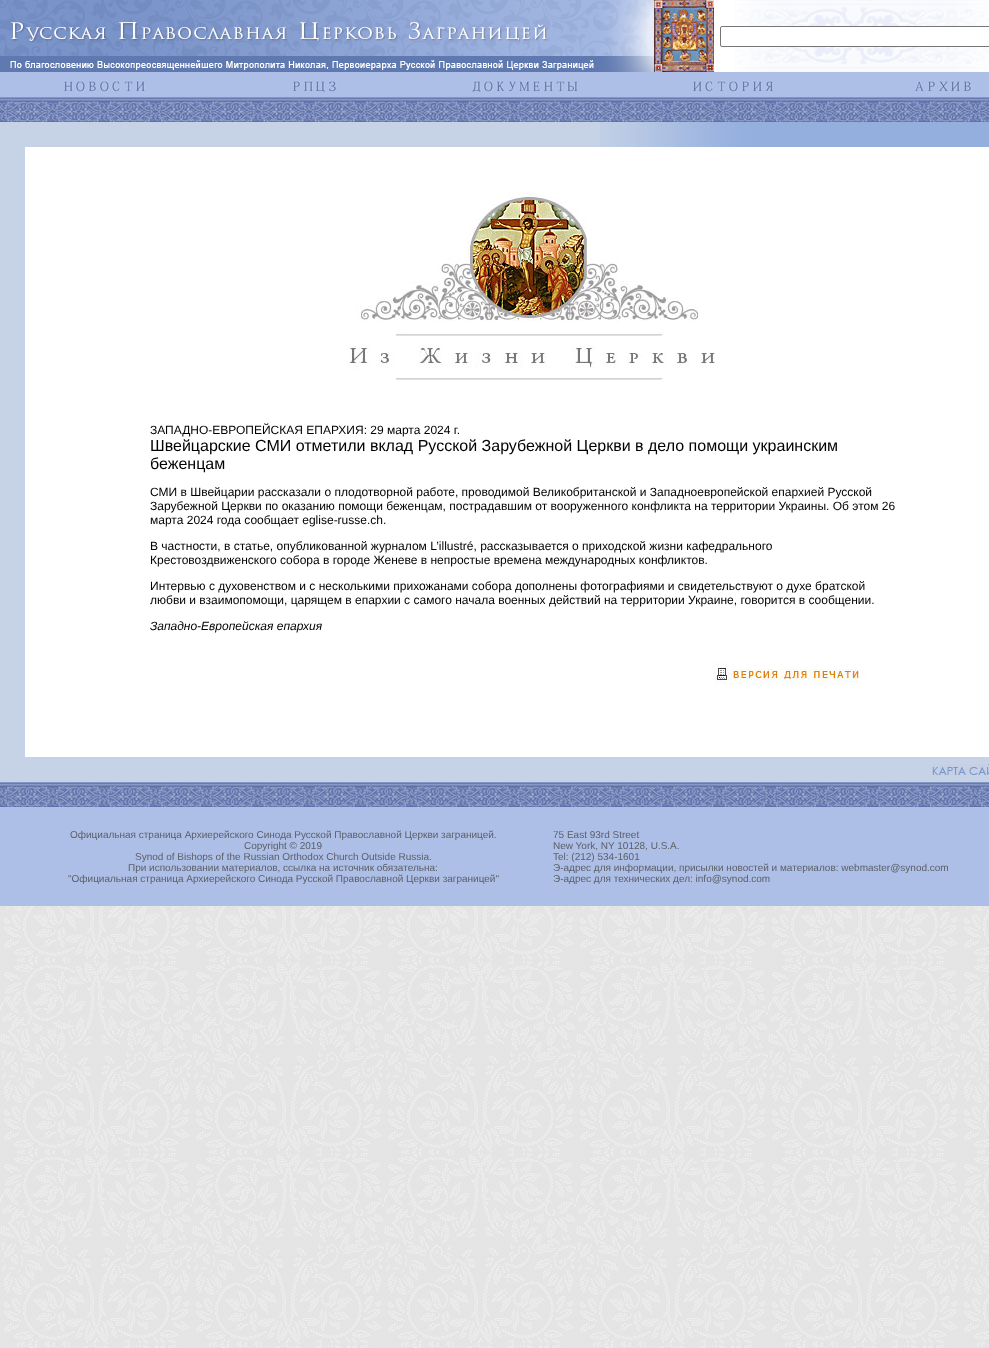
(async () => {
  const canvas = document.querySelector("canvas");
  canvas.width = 989;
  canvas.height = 1348;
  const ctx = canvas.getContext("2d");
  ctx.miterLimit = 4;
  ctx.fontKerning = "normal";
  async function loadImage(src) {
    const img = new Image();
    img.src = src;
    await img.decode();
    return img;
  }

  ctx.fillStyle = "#ffffff";
  ctx.fillRect(0, 0, 989, 1348);
  ctx.drawImage(await loadImage("img/1.png"), 0, 906, 989, 442);
  ctx.drawImage(await loadImage("img/2.png"), 0, 0, 718, 72);
  ctx.drawImage(await loadImage("img/3.png"), 734, 0, 255, 72);
  ctx.beginPath();
  ctx.roundRect(720.5, 26.5, 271, 20, 1.5);
  ctx.fill();
  ctx.strokeStyle = "#767676";
  ctx.stroke();
  ctx.fillStyle = "#adbee7";
  ctx.fillRect(0, 72, 989, 25);
  ctx.drawImage(await loadImage("img/4.png"), 64, 80, 81, 12);
  ctx.drawImage(await loadImage("img/5.png"), 293, 80, 44, 13);
  ctx.drawImage(await loadImage("img/6.png"), 472, 80, 106, 12);
  ctx.drawImage(await loadImage("img/7.png"), 693, 80, 80, 12);
  ctx.drawImage(await loadImage("img/8.png"), 915, 80, 57, 12);
  ctx.drawImage(await loadImage("img/9.png"), 0, 97, 989, 25);
  ctx.fillStyle = "#c6d3e7";
  ctx.fillRect(0, 122, 25, 660);
  ctx.fillRect(25, 122, 575, 25);
  ctx.drawImage(await loadImage("img/10.png"), 600, 122, 234, 25);
  ctx.fillStyle = "#94aede";
  ctx.fillRect(834, 122, 155, 25);
  ctx.drawImage(await loadImage("img/11.png"), 347, 193, 368, 188);
  ctx.drawImage(await loadImage("img/12.png"), 714, 662, 152, 23);
  ctx.fillStyle = "#c6d3e7";
  ctx.fillRect(25, 757, 964, 25);
  ctx.drawImage(await loadImage("img/13.png"), 932, 764, 57, 11);
  ctx.drawImage(await loadImage("img/9.png"), 0, 782, 989, 25);
  ctx.fillStyle = "#adbee7";
  ctx.fillRect(0, 807, 989, 99);
  ctx.font = "12px Liberation Sans";
  ctx.fillStyle = "#000000";
  ctx.fillText("ЗАПАДНО-ЕВРОПЕЙСКАЯ ЕПАРХИЯ: 29 марта 2024 г.", 150, 434);
  ctx.font = "16px Liberation Sans";
  ctx.fillText("Швейцарские СМИ отметили вклад Русской Зарубежной Церкви в дело помощи украинским", 150, 451);
  ctx.fillText("беженцам", 150, 469);
  ctx.font = "12px Liberation Sans";
  for (const [text, x, y] of [
    ["СМИ в Швейцарии рассказали о плодотворной работе, проводимой Великобританской и Западноевропейской епархией Русской", 150, 496],
    ["Зарубежной Церкви по оказанию помощи беженцам, пострадавшим от вооруженного конфликта на территории Украины. Об этом 26", 150, 510],
    ["марта 2024 года сообщает eglise-russe.ch.", 150, 524],
    ["В частности, в статье, опубликованной журналом L’illustré, рассказывается о приходской жизни кафедрального", 150, 550],
    ["Крестовоздвиженского собора в городе Женеве в непростые времена международных конфликтов.", 150, 564],
    ["Интервью с духовенством и с несколькими прихожанами собора дополнены фотографиями и свидетельствуют о духе братской", 150, 590],
    ["любви и взаимопомощи, царящем в епархии с самого начала военных действий на территории Украине, говорится в сообщении.", 150, 604],
  ]) {
    ctx.fillText(text, x, y);
  }
  ctx.font = "italic 12px Liberation Sans";
  ctx.fillText("Западно-Европейская епархия", 150, 630);
  ctx.font = "10px Liberation Sans";
  ctx.fillStyle = "#5c6067";
  for (const [text, x, y] of [
    ["Официальная страница Архиерейского Синода Русской Православной Церкви заграницей.", 70, 838],
    ["Copyright © 2019", 244, 849],
    ["Synod of Bishops of the Russian Orthodox Church Outside Russia.", 135, 860],
    ["При использовании материалов, ссылка на источник обязательна:", 128, 871],
    ["\"Официальная страница Архиерейского Синода Русской Православной Церкви заграницей\"", 68, 882],
    ["75 East 93rd Street", 553, 838],
    ["New York, NY 10128, U.S.A.", 553, 849],
    ["Tel: (212) 534-1601", 553, 860],
    ["Э-адрес для информации, присылки новостей и материалов: webmaster@synod.com", 553, 871],
    ["Э-адрес для технических дел: info@synod.com", 553, 882],
  ]) {
    ctx.fillText(text, x, y);
  }
})();
